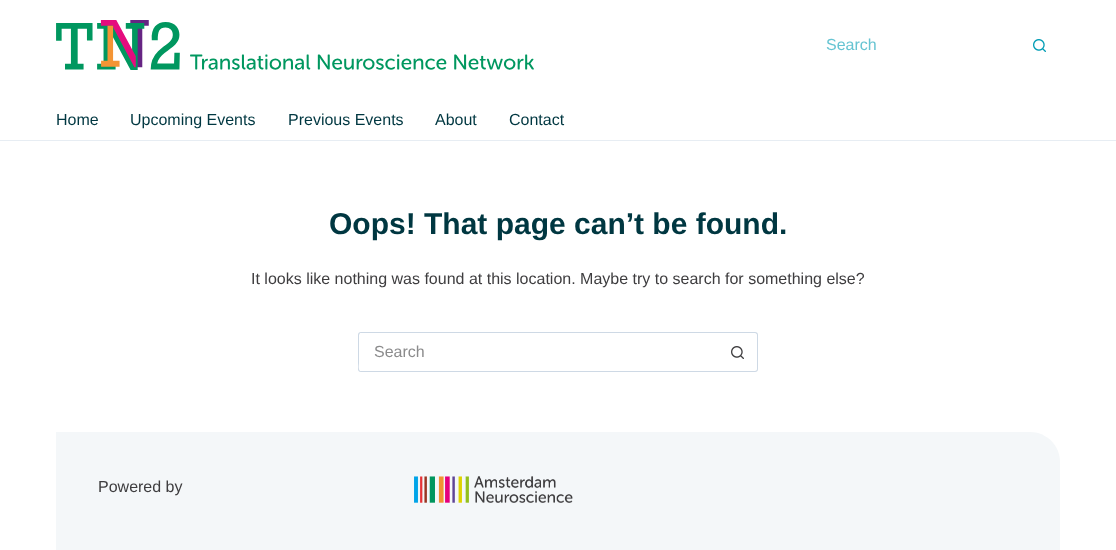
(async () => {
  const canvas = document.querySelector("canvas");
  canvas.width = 1116;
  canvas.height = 550;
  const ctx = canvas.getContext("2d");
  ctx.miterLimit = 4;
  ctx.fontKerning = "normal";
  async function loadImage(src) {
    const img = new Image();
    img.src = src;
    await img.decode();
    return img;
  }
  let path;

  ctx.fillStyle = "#ffffff";
  ctx.fillRect(0, 0, 1116, 550);
  ctx.drawImage(await loadImage("img/1.png"), 56, 20, 478, 50);
  ctx.drawImage(await loadImage("img/2.png"), 1033, 39, 13, 13);
  ctx.fillStyle = "#e7edf3";
  ctx.fillRect(0, 140, 1116, 1);
  ctx.fillStyle = "#ced9e5";
  path = new Path2D("M361 332H718V372H361C359 372 358 371 358 369V335C358 333 359 332 361 332ZM361 333H718V371H360C358 369 359 364 359 363V335L360 333Z");
  ctx.fill(path, "evenodd");
  path = new Path2D("M718 332H755C757 332 758 333 758 335V369C758 371 757 372 755 372H718ZM718 333H755C756 333 757 334 757 335V369C757 370 756 371 755 371H718Z");
  ctx.fill(path, "evenodd");
  ctx.drawImage(await loadImage("img/3.png"), 731, 346, 13, 13);
  ctx.fillStyle = "#f4f7f9";
  path = new Path2D("M56 432H1030C1046.5 432 1060 445.5 1060 462V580H56Z");
  ctx.fill(path);
  ctx.drawImage(await loadImage("img/4.png"), 414, 476, 159, 27);
  ctx.font = "16px Liberation Sans";
  ctx.fillStyle = "#66c4d2";
  ctx.fillText("Search", 826, 50);
  ctx.fillStyle = "#003741";
  for (const [text, x, y] of [
    ["Home", 56, 125],
    ["Upcoming Events", 130, 125],
    ["Previous Events", 288, 125],
    ["About", 435, 125],
    ["Contact", 509, 125],
  ]) {
    ctx.fillText(text, x, y);
  }
  ctx.font = "bold 30px Liberation Sans";
  ctx.fillText("Oops! That page can’t be found.", 329, 234);
  ctx.font = "16px Liberation Sans";
  ctx.fillStyle = "#3e3d3f";
  ctx.fillText("It looks like nothing was found at this location. Maybe try to search for something else?", 251, 284);
  ctx.fillStyle = "#8b8b8c";
  ctx.fillText("Search", 374, 357);
  ctx.fillStyle = "#3e3d3f";
  ctx.fillText("Powered by", 98, 492);
})();
